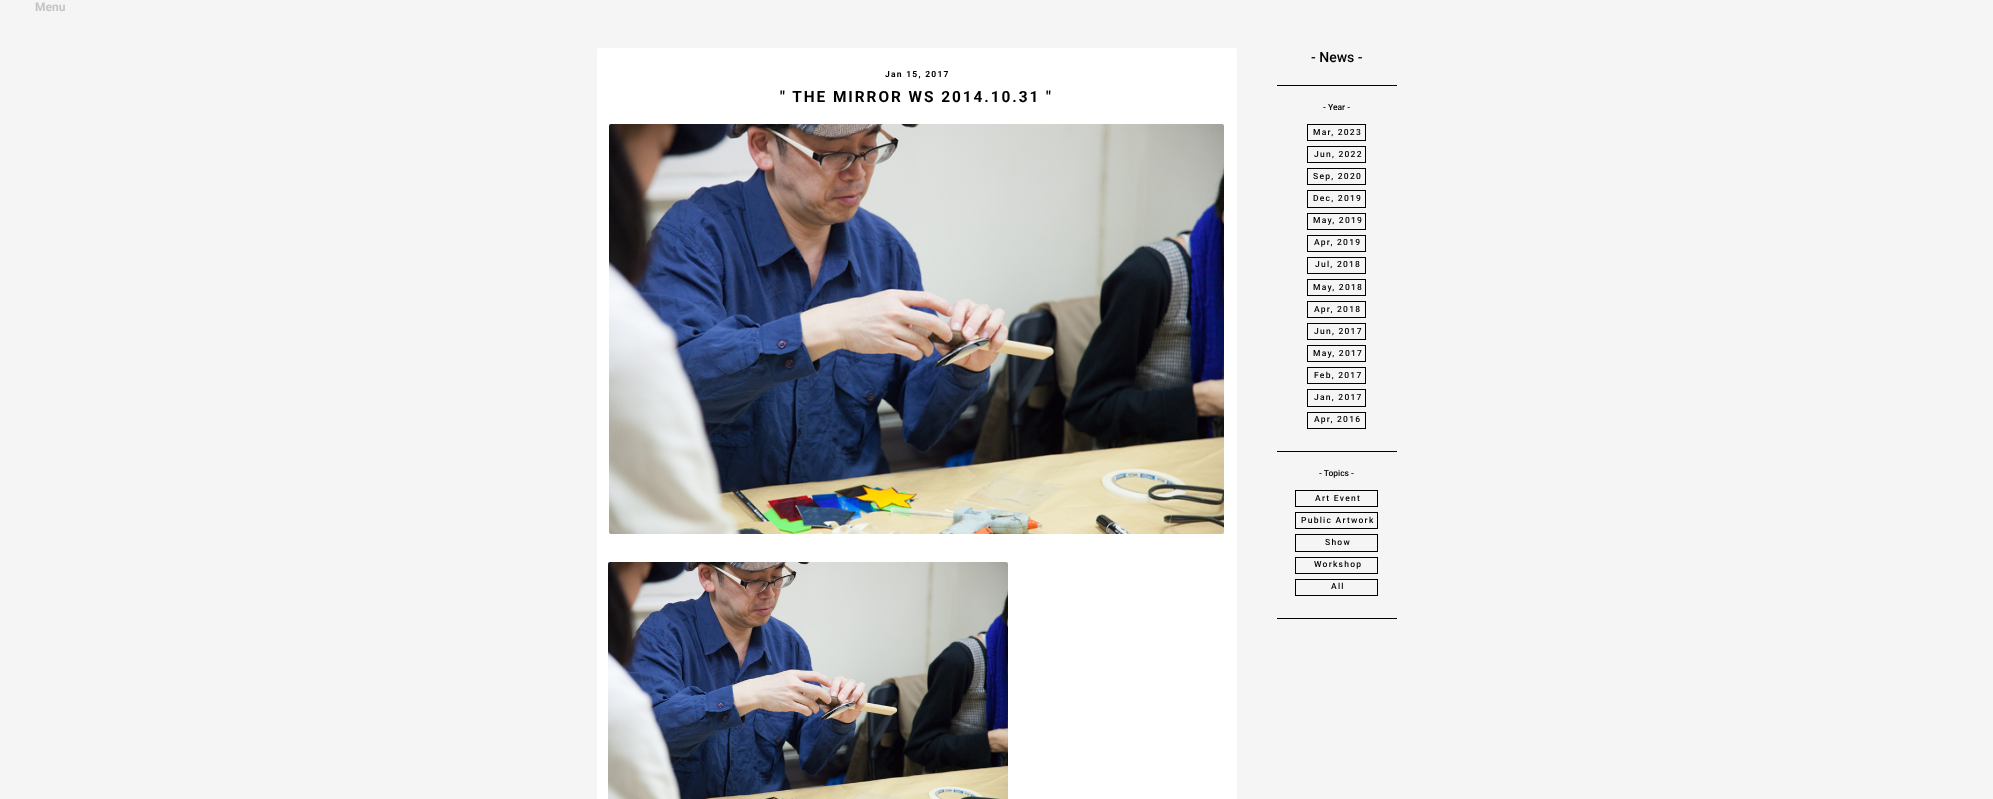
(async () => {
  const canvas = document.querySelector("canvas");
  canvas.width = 1993;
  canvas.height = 799;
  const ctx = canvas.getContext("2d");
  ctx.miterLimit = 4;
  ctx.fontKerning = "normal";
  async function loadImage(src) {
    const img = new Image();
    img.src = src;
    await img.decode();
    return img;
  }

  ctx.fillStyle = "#f5f5f5";
  ctx.fillRect(0, 0, 1993, 799);
  ctx.fillStyle = "#ffffff";
  ctx.beginPath();
  ctx.roundRect(597, 48, 640, 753, 2);
  ctx.fill();
  ctx.drawImage(await loadImage("img/1.png"), 609, 124, 615, 410);
  ctx.drawImage(await loadImage("img/2.png"), 608, 562, 400, 237);
  ctx.fillStyle = "#000000";
  ctx.fillRect(1277, 85, 120, 1);
  ctx.strokeStyle = "#000000";
  ctx.strokeRect(1307.5, 124.5, 58, 16);
  ctx.strokeRect(1307.5, 146.5, 58, 16);
  ctx.strokeRect(1307.5, 168.5, 58, 16);
  ctx.strokeRect(1307.5, 190.5, 58, 17);
  ctx.strokeRect(1307.5, 213.5, 58, 16);
  ctx.strokeRect(1307.5, 235.5, 58, 16);
  ctx.strokeRect(1307.5, 257.5, 58, 16);
  ctx.strokeRect(1307.5, 279.5, 58, 16);
  ctx.strokeRect(1307.5, 301.5, 58, 16);
  ctx.strokeRect(1307.5, 323.5, 58, 16);
  ctx.strokeRect(1307.5, 345.5, 58, 16);
  ctx.strokeRect(1307.5, 367.5, 58, 16);
  ctx.strokeRect(1307.5, 389.5, 58, 17);
  ctx.strokeRect(1307.5, 412.5, 58, 16);
  ctx.fillRect(1277, 451, 120, 1);
  ctx.strokeRect(1295.5, 490.5, 82, 16);
  ctx.strokeRect(1295.5, 512.5, 82, 16);
  ctx.strokeRect(1295.5, 534.5, 82, 17);
  ctx.strokeRect(1295.5, 557.5, 82, 16);
  ctx.strokeRect(1295.5, 579.5, 82, 16);
  ctx.fillRect(1277, 618, 120, 1);
  ctx.font = "bold 12px Roboto";
  ctx.fillStyle = "#c4c4c4";
  ctx.fillText("Menu", 35, 11);
  ctx.letterSpacing = "1.25px";
  ctx.font = "bold 8.5px Roboto";
  ctx.fillStyle = "#000000";
  ctx.fillText("Jan 15, 2017", 885, 77);
  ctx.letterSpacing = "1.95px";
  ctx.font = "bold 15.4px Roboto";
  ctx.fillText("\" THE MIRROR WS 2014.10.31 \"", 780, 102);
  ctx.letterSpacing = "0px";
  ctx.font = "500 14px Roboto";
  ctx.fillText("- News -", 1311, 62);
  ctx.font = "500 8.5px Roboto";
  ctx.fillText("- Year -", 1323, 110);
  ctx.letterSpacing = "1.25px";
  for (const [text, x, y] of [
    ["Mar, 2023", 1313, 135],
    ["Jun, 2022", 1314, 157],
    ["Sep, 2020", 1313, 179],
    ["Dec, 2019", 1313, 201],
    ["May, 2019", 1313, 223],
    ["Apr, 2019", 1314, 245],
    ["Jul, 2018", 1315, 267],
    ["May, 2018", 1313, 290],
    ["Apr, 2018", 1314, 312],
    ["Jun, 2017", 1314, 334],
    ["May, 2017", 1313, 356],
    ["Feb, 2017", 1314, 378],
    ["Jan, 2017", 1314, 400],
    ["Apr, 2016", 1314, 422],
  ]) {
    ctx.fillText(text, x, y);
  }
  ctx.letterSpacing = "0px";
  ctx.fillText("- Topics -", 1319, 476);
  ctx.letterSpacing = "1.25px";
  for (const [text, x, y] of [
    ["Art Event", 1315, 501],
    ["Public Artwork", 1301, 523],
    ["Show", 1325, 545],
    ["Workshop", 1314, 567],
    ["All", 1331, 589],
  ]) {
    ctx.fillText(text, x, y);
  }
})();
